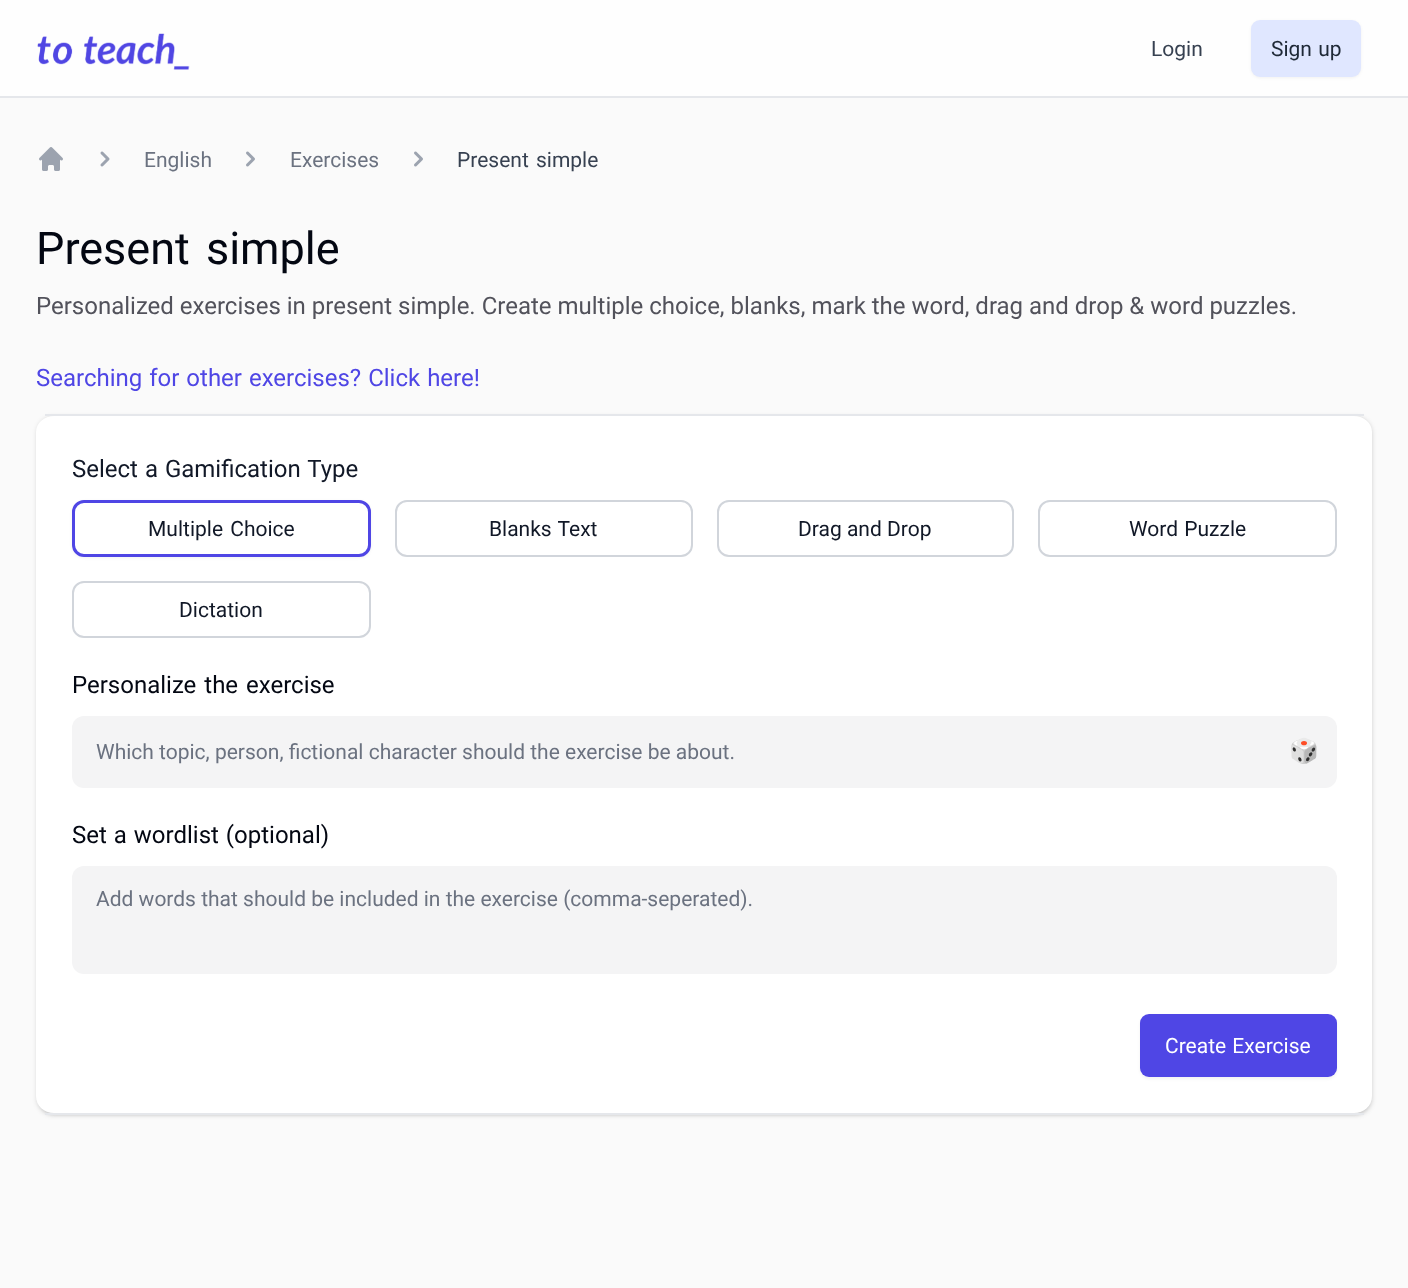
(async () => {
  const canvas = document.querySelector("canvas");
  canvas.width = 1408;
  canvas.height = 1288;
  const ctx = canvas.getContext("2d");
  ctx.miterLimit = 4;
  ctx.fontKerning = "normal";
  async function loadImage(src) {
    const img = new Image();
    img.src = src;
    await img.decode();
    return img;
  }
  let path;

  ctx.fillStyle = "#fafafa";
  ctx.fillRect(0, 0, 1408, 1288);
  ctx.fillStyle = "#fefefe";
  ctx.fillRect(0, 0, 1408, 96);
  ctx.fillStyle = "#e5e7eb";
  ctx.fillRect(0, 96, 1408, 2);
  ctx.drawImage(await loadImage("img/1.png"), 37, 33, 153, 37);
  ctx.fillStyle = "rgba(0, 0, 0, 0.05)";
  ctx.filter = "blur(1.5px)";
  ctx.beginPath();
  ctx.roundRect(1251, 21, 110, 57, 9);
  ctx.fill();
  ctx.filter = "none";
  ctx.fillStyle = "#e0e7ff";
  ctx.beginPath();
  ctx.roundRect(1251, 20, 110, 57, 9);
  ctx.fill();
  ctx.drawImage(await loadImage("img/2.png"), 39, 147, 24, 24);
  ctx.drawImage(await loadImage("img/3.png"), 100, 151, 10, 16);
  ctx.drawImage(await loadImage("img/4.png"), 246, 151, 9, 16);
  ctx.drawImage(await loadImage("img/4.png"), 414, 151, 9, 16);
  ctx.fillStyle = "rgba(0, 0, 0, 0.1)";
  ctx.filter = "blur(1.5px)";
  ctx.beginPath();
  ctx.roundRect(38, 417, 1333, 698, 17);
  ctx.fill();
  ctx.filter = "none";
  ctx.filter = "blur(2px)";
  ctx.beginPath();
  ctx.roundRect(36, 416, 1337, 700, 18);
  ctx.fill();
  ctx.filter = "none";
  ctx.fillStyle = "#ffffff";
  path = new Path2D("M54 416H1354C1364 416 1372 423 1372 432V1096C1372 1106 1364 1113 1354 1113H54C44 1113 36 1106 36 1096V432C36 423 44 416 54 416Z");
  ctx.fill(path);
  ctx.fillStyle = "#e5e7eb";
  ctx.fillRect(45, 414, 1319, 2);
  ctx.fillRect(45, 1113, 1319, 2);
  ctx.fillStyle = "rgba(0, 0, 0, 0.05)";
  ctx.filter = "blur(1.5px)";
  ctx.beginPath();
  ctx.roundRect(72, 501, 299, 57, 12);
  ctx.fill();
  ctx.filter = "none";
  ctx.fillStyle = "#ffffff";
  ctx.beginPath();
  ctx.roundRect(72, 500, 299, 57, 12);
  ctx.fill();
  ctx.beginPath();
  ctx.roundRect(73.5, 501.5, 296, 54, 10.5);
  ctx.strokeStyle = "#4f46e5";
  ctx.lineWidth = 3;
  ctx.stroke();
  ctx.beginPath();
  ctx.roundRect(396, 501, 296, 55, 11);
  ctx.strokeStyle = "#d1d5db";
  ctx.lineWidth = 2;
  ctx.stroke();
  ctx.beginPath();
  ctx.roundRect(718, 501, 295, 55, 11);
  ctx.stroke();
  ctx.beginPath();
  ctx.roundRect(1039, 501, 297, 55, 11);
  ctx.stroke();
  ctx.beginPath();
  ctx.roundRect(73, 582, 297, 55, 11);
  ctx.stroke();
  ctx.fillStyle = "#f4f4f5";
  ctx.beginPath();
  ctx.roundRect(72, 716, 1265, 72, 12);
  ctx.fill();
  ctx.beginPath();
  ctx.roundRect(72, 866, 1265, 108, 12);
  ctx.fill();
  ctx.fillStyle = "rgba(0, 0, 0, 0.05)";
  ctx.filter = "blur(1.5px)";
  ctx.beginPath();
  ctx.roundRect(1140, 1016, 197, 63, 9);
  ctx.fill();
  ctx.filter = "none";
  ctx.fillStyle = "#4f46e5";
  ctx.beginPath();
  ctx.roundRect(1140, 1014, 197, 63, 9);
  ctx.fill();
  ctx.font = "21px Roboto";
  ctx.fillStyle = "#374151";
  ctx.fillText("Login", 1151, 56);
  ctx.wordSpacing = "1px";
  ctx.fillStyle = "#1f2937";
  ctx.fillText("Sign up", 1271, 56);
  ctx.wordSpacing = "0px";
  ctx.fillStyle = "#6b7280";
  ctx.fillText("English", 144, 167);
  ctx.fillText("Exercises", 290, 167);
  ctx.wordSpacing = "2px";
  ctx.fillStyle = "#374151";
  ctx.fillText("Present simple", 457, 167);
  ctx.wordSpacing = "5px";
  ctx.font = "45px Roboto";
  ctx.fillStyle = "#030712";
  ctx.fillText("Present simple", 36, 264);
  ctx.wordSpacing = "0px";
  ctx.font = "24px Roboto";
  ctx.fillStyle = "#52525b";
  ctx.fillText("Personalized exercises in present simple. Create multiple choice, blanks, mark the word, drag and drop & word puzzles.", 36, 314);
  ctx.wordSpacing = "1px";
  ctx.fillStyle = "#4f46e5";
  ctx.fillText("Searching for other exercises? Click here!", 36, 386);
  ctx.fillStyle = "#111827";
  ctx.fillText("Select a Gamification Type", 72, 477);
  ctx.wordSpacing = "2px";
  ctx.font = "21px Roboto";
  ctx.fillText("Multiple Choice", 148, 536);
  ctx.wordSpacing = "1px";
  ctx.fillText("Blanks Text", 489, 536);
  ctx.wordSpacing = "0px";
  ctx.fillText("Drag and Drop", 798, 536);
  ctx.wordSpacing = "1px";
  ctx.fillText("Word Puzzle", 1129, 536);
  ctx.wordSpacing = "0px";
  ctx.fillText("Dictation", 179, 617);
  ctx.wordSpacing = "2px";
  ctx.font = "24px Roboto";
  ctx.fillStyle = "#030712";
  ctx.fillText("Personalize the exercise", 72, 693);
  ctx.wordSpacing = "0px";
  ctx.font = "21px Roboto";
  ctx.fillStyle = "#6b7280";
  ctx.fillText("Which topic, person, fictional character should the exercise be about.", 96, 759);
  ctx.font = "24px Noto Color Emoji";
  ctx.fillStyle = "#030712";
  ctx.fillText("🎲", 1289, 759);
  ctx.wordSpacing = "1px";
  ctx.font = "24px Roboto";
  ctx.fillText("Set a wordlist (optional)", 72, 843);
  ctx.wordSpacing = "0px";
  ctx.font = "21px Roboto";
  ctx.fillStyle = "#6b7280";
  ctx.fillText("Add words that should be included in the exercise (comma-seperated).", 96, 906);
  ctx.wordSpacing = "1px";
  ctx.fillStyle = "#ffffff";
  ctx.fillText("Create Exercise", 1165, 1053);
})();
